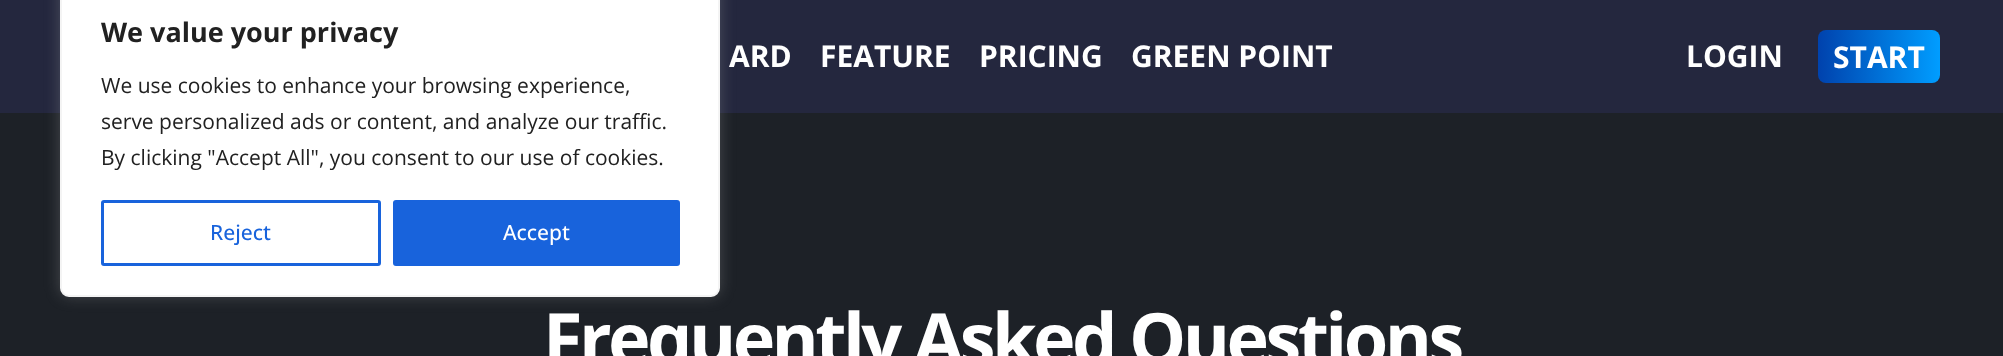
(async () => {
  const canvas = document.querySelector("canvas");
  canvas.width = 2003;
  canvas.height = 356;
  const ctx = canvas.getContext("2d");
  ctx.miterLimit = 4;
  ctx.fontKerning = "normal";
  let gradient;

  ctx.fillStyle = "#24273e";
  ctx.fillRect(0, 0, 2003, 356);
  ctx.fillStyle = "#1d2127";
  ctx.fillRect(0, 113, 2003, 243);
  ctx.fillStyle = "rgba(172, 171, 171, 0.3)";
  ctx.filter = "blur(7.5px)";
  ctx.beginPath();
  ctx.roundRect(60, -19, 660, 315, 9);
  ctx.fill();
  ctx.filter = "none";
  ctx.fillStyle = "#ffffff";
  ctx.beginPath();
  ctx.roundRect(61, -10, 658, 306, 8);
  ctx.fill();
  ctx.strokeStyle = "#f4f4f4";
  ctx.lineWidth = 2;
  ctx.stroke();
  ctx.beginPath();
  ctx.roundRect(102.5, 201.5, 277, 63, 1.5);
  ctx.strokeStyle = "#1863dc";
  ctx.lineWidth = 3;
  ctx.stroke();
  ctx.fillStyle = "#1863dc";
  ctx.beginPath();
  ctx.roundRect(394.5, 201.5, 284, 63, 1.5);
  ctx.fill();
  ctx.stroke();
  gradient = ctx.createLinearGradient(1818, 56, 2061, 56);
  gradient.addColorStop(0, "#0042ad");
  gradient.addColorStop(0.5, "#009dff");
  gradient.addColorStop(1, "#0042ad");
  ctx.fillStyle = gradient;
  ctx.beginPath();
  ctx.roundRect(1818, 30, 122, 53, 8);
  ctx.fill();
  ctx.font = "bold 27px Open Sans";
  ctx.fillStyle = "#212121";
  ctx.fillText("We value your privacy", 101, 42);
  ctx.font = "21px Open Sans";
  for (const [text, x, y] of [
    ["We use cookies to enhance your browsing experience,", 101, 93],
    ["serve personalized ads or content, and analyze our traffic.", 101, 129],
    ["By clicking \"Accept All\", you consent to our use of cookies.", 101, 165],
  ]) {
    ctx.fillText(text, x, y);
  }
  ctx.font = "500 21px Open Sans";
  ctx.fillStyle = "#1863dc";
  ctx.fillText("Reject", 210, 240);
  ctx.fillStyle = "#ffffff";
  ctx.fillText("Accept", 503, 240);
  ctx.font = "bold 30px Open Sans";
  for (const [text, x, y] of [
    ["ARD", 729, 67],
    ["FEATURE", 820, 67],
    ["PRICING", 979, 67],
    ["GREEN POINT", 1131, 67],
    ["LOGIN", 1686, 67],
    ["START", 1833, 68],
  ]) {
    ctx.fillText(text, x, y);
  }
  ctx.letterSpacing = "-3.6px";
  ctx.font = "bold 72px Open Sans";
  ctx.fillText("Frequently Asked Questions", 543, 365);
})();
